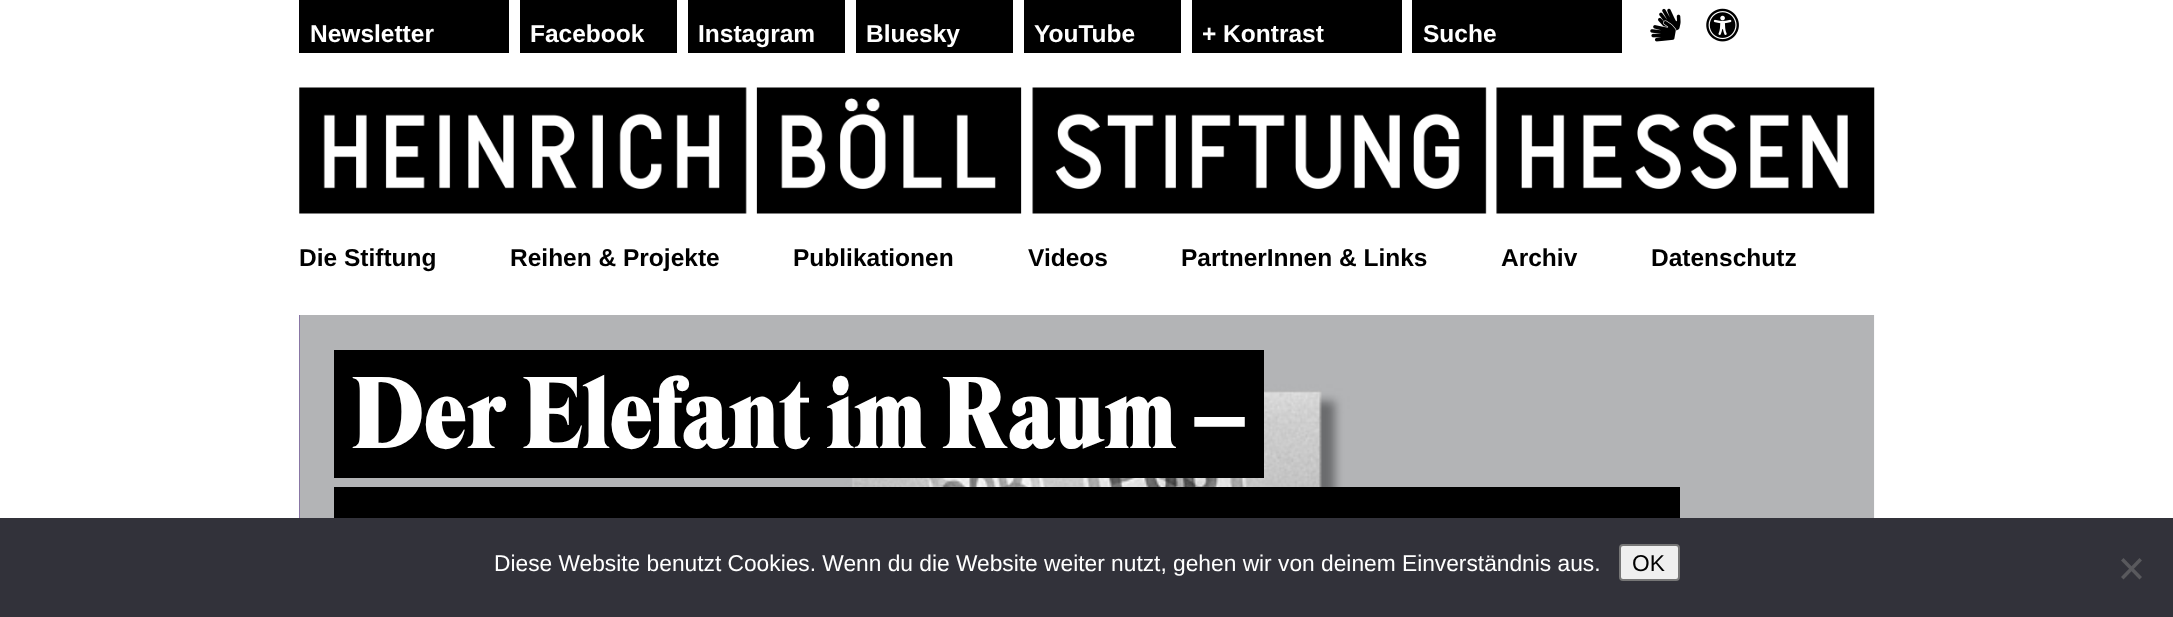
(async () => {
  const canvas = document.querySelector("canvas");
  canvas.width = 2173;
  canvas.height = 617;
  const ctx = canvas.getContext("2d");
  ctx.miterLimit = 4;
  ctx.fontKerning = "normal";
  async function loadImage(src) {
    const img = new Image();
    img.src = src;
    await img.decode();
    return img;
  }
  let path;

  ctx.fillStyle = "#ffffff";
  ctx.fillRect(0, 0, 2173, 617);
  for (const [x, y, w, h, color] of [
    [299, 0, 210, 53, "#000000"],
    [520, 0, 157, 53, "#000000"],
    [688, 0, 157, 53, "#000000"],
    [856, 0, 157, 53, "#000000"],
    [1024, 0, 157, 53, "#000000"],
    [1192, 0, 210, 53, "#000000"],
    [1412, 0, 210, 53, "#000000"],
  ]) {
    ctx.fillStyle = color;
    ctx.fillRect(x, y, w, h);
  }
  ctx.drawImage(await loadImage("img/1.png"), 1650, 8, 31, 34);
  ctx.drawImage(await loadImage("img/2.png"), 1706, 8, 33, 34);
  ctx.drawImage(await loadImage("img/3.png"), 299, 87, 1576, 127);
  ctx.fillStyle = "#50288c";
  ctx.fillRect(299, 315, 1, 203);
  ctx.drawImage(await loadImage("img/4.png"), 299, 315, 1576, 203);
  ctx.fillStyle = "#000000";
  path = new Path2D("M334 350V478H1229H352V350Z");
  ctx.fill(path);
  path = new Path2D("M369 478H1264V350H1246V478Z");
  ctx.fill(path);
  for (const [x, y, w, h, color] of [
    [352, 350, 894, 128, "#000000"],
    [334, 487, 18, 31, "#000000"],
    [352, 487, 1328, 31, "#000000"],
    [0, 518, 2173, 99, "#32323a"],
  ]) {
    ctx.fillStyle = color;
    ctx.fillRect(x, y, w, h);
  }
  ctx.fillStyle = "#efefef";
  ctx.beginPath();
  ctx.roundRect(1620, 545, 59, 35, 3);
  ctx.fill();
  ctx.strokeStyle = "#767676";
  ctx.lineWidth = 2;
  ctx.stroke();
  ctx.fillStyle = "#59595d";
  path = new Path2D("M2139.5 558L2142 560.5L2123.5 579.5L2121 577Z");
  ctx.fill(path);
  path = new Path2D("M2121 560.5L2123.5 558L2142 577L2139.5 579.5Z");
  ctx.fill(path);
  ctx.font = "bold 24.5px Liberation Sans";
  ctx.fillStyle = "#ffffff";
  for (const [text, x, y] of [
    ["Newsletter", 310, 42],
    ["Facebook", 530, 42],
    ["Instagram", 698, 42],
    ["Bluesky", 866, 42],
    ["YouTube", 1034, 42],
    ["+ Kontrast", 1202, 42],
    ["Suche", 1423, 42],
  ]) {
    ctx.fillText(text, x, y);
  }
  ctx.fillStyle = "#000000";
  for (const [text, x, y] of [
    ["Die Stiftung", 299, 266],
    ["Reihen & Projekte", 510, 266],
    ["Publikationen", 793, 266],
    ["Videos", 1028, 266],
    ["PartnerInnen & Links", 1181, 266],
    ["Archiv", 1501, 266],
    ["Datenschutz", 1651, 266],
  ]) {
    ctx.fillText(text, x, y);
  }
  ctx.font = "900 92.75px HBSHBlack";
  ctx.fillStyle = "#ffffff";
  ctx.fillText("Der Elefant im Raum –", 352, 448);
  ctx.font = "22.75px Liberation Sans";
  ctx.fillText("Diese Website benutzt Cookies. Wenn du die Website weiter nutzt, gehen wir von deinem Einverständnis aus.", 494, 571);
  ctx.fillStyle = "#000000";
  ctx.fillText("OK", 1632, 571);
})();
